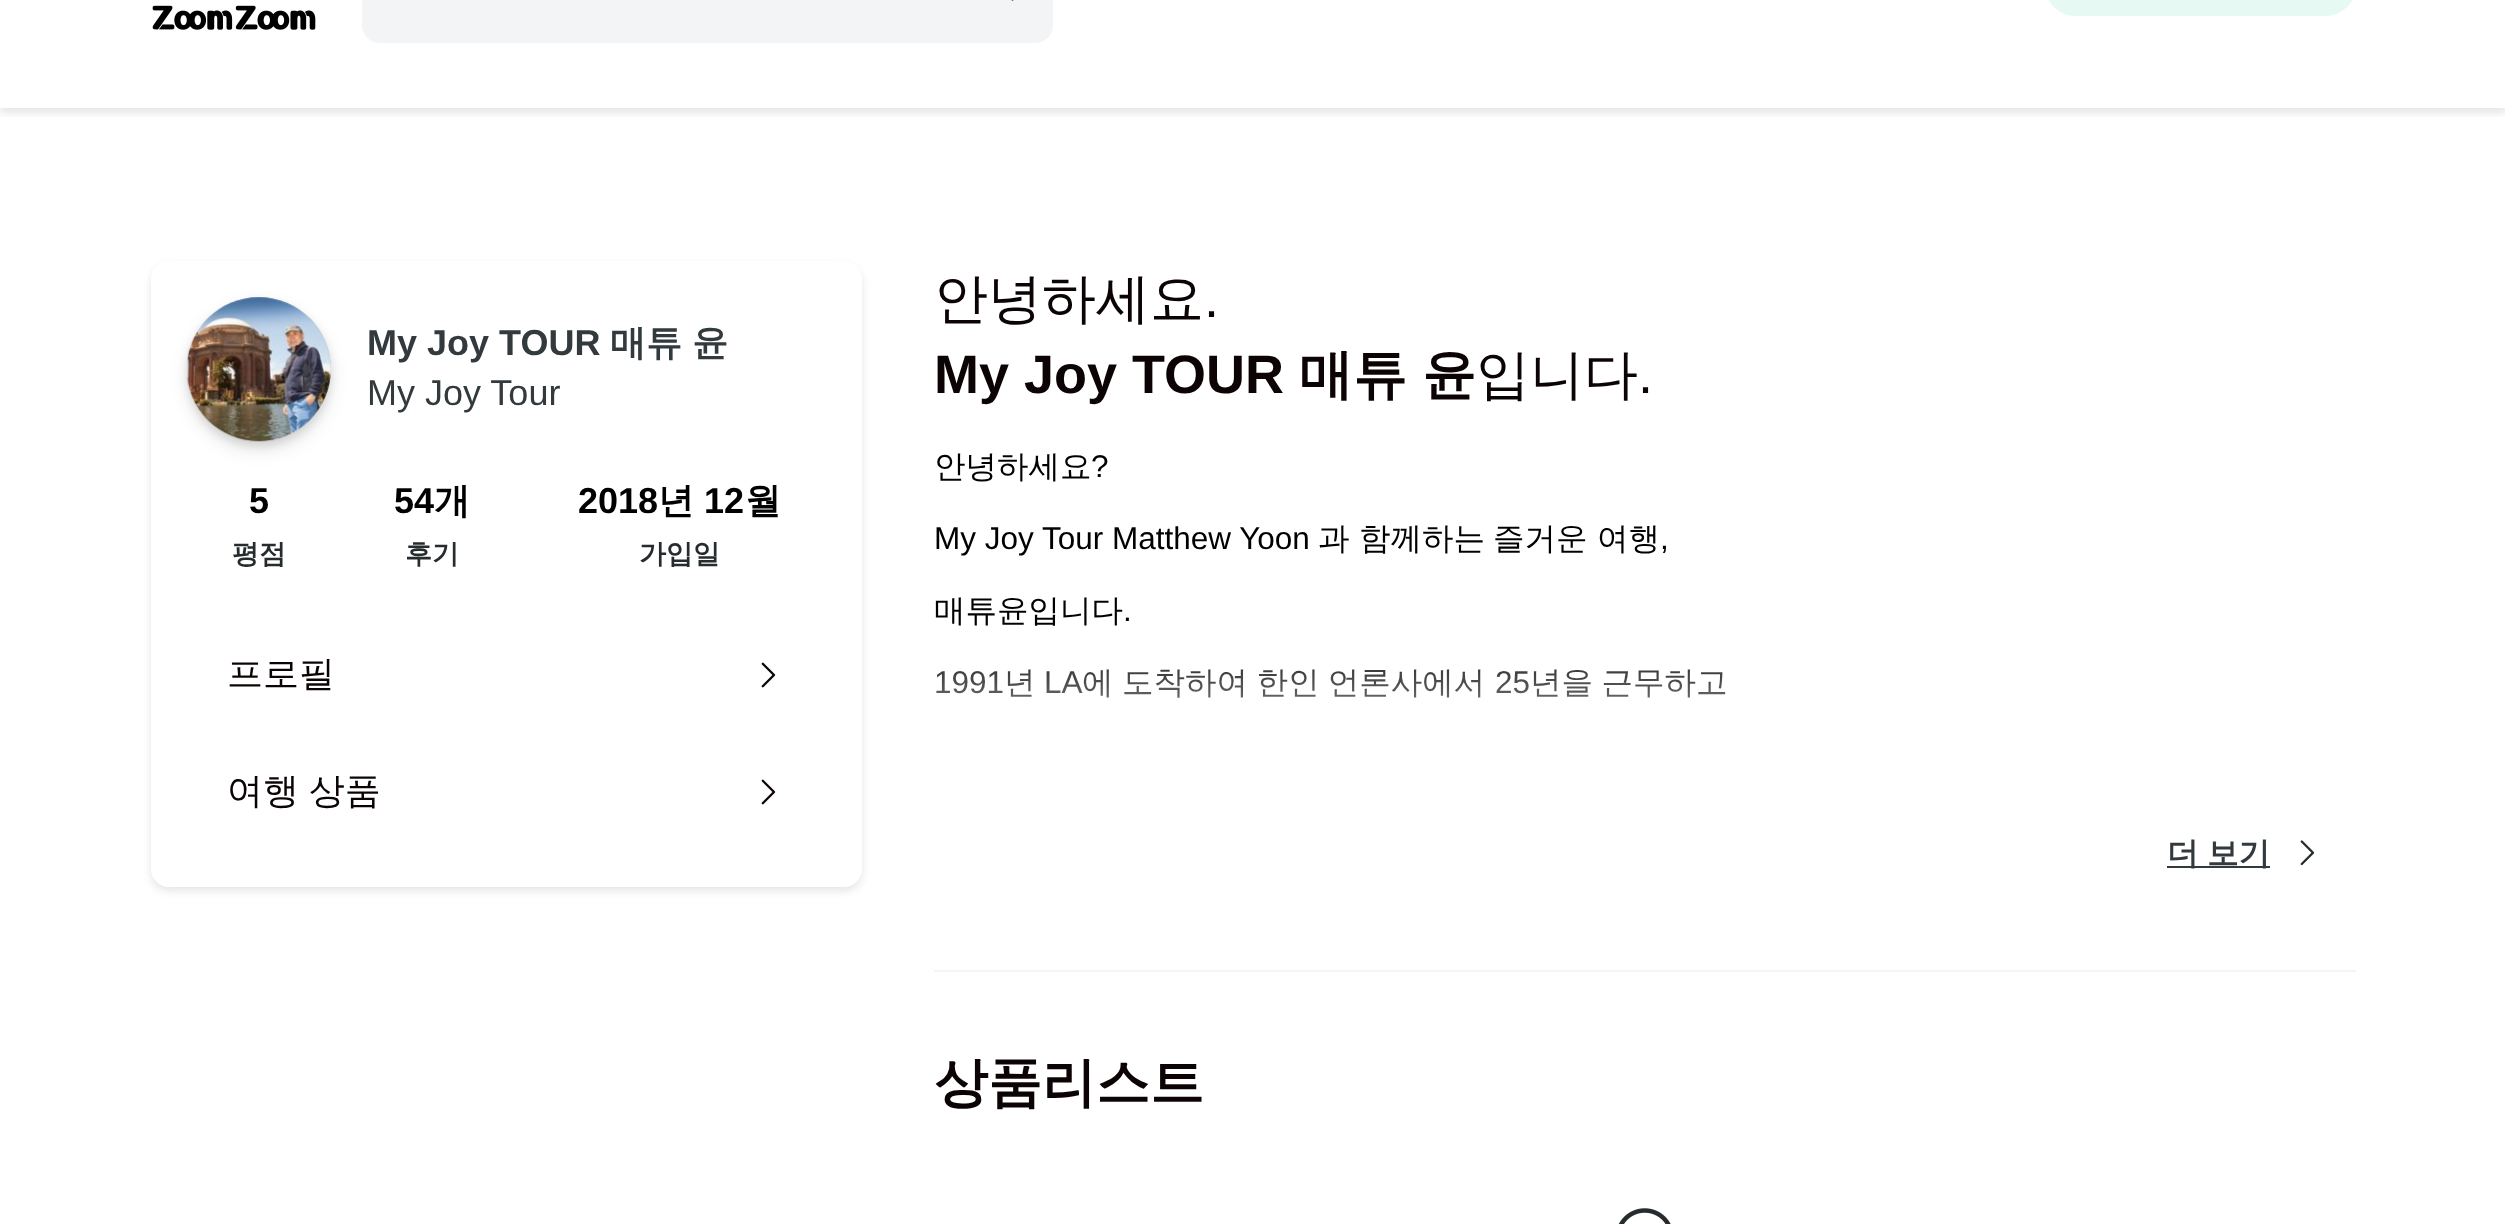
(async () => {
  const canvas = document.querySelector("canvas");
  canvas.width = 2505;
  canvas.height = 1224;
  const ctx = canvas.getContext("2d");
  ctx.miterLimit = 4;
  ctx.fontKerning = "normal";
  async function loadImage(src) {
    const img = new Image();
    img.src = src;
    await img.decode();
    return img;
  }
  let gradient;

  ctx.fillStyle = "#ffffff";
  ctx.fillRect(0, 0, 2505, 1224);
  ctx.save();
  ctx.beginPath();
  ctx.rect(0, 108, 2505, 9);
  ctx.clip();
  ctx.fillStyle = "rgba(0, 0, 0, 0.1)";
  ctx.filter = "blur(4.5px)";
  ctx.beginPath();
  ctx.rect(0, -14, 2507, 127);
  ctx.fill();
  ctx.filter = "none";
  ctx.restore();
  ctx.drawImage(await loadImage("img/1.png"), 152, 5, 164, 25);
  ctx.fillStyle = "#f2f4f5";
  ctx.beginPath();
  ctx.roundRect(362, -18, 691, 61, 18);
  ctx.fill();
  ctx.drawImage(await loadImage("img/2.png"), 1011, 0, 3, 1);
  ctx.fillStyle = "#e6f9f2";
  ctx.beginPath();
  ctx.roundRect(2045, -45, 311, 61, 45);
  ctx.fill();
  ctx.fillStyle = "rgba(0, 0, 0, 0.1)";
  ctx.filter = "blur(4.5px)";
  ctx.beginPath();
  ctx.roundRect(151, 266, 711, 625, 18);
  ctx.fill();
  ctx.filter = "none";
  ctx.fillStyle = "#ffffff";
  ctx.beginPath();
  ctx.roundRect(151, 261, 711, 626, 18);
  ctx.fill();
  ctx.fillStyle = "rgba(0, 0, 0, 0.1)";
  ctx.filter = "blur(4.5px)";
  ctx.beginPath();
  ctx.roundRect(187, 302, 144, 144, 72);
  ctx.fill();
  ctx.filter = "none";
  ctx.filter = "blur(9px)";
  ctx.beginPath();
  ctx.roundRect(187, 306, 144, 144, 72);
  ctx.fill();
  ctx.filter = "none";
  ctx.fillStyle = "#bfc9cd";
  ctx.beginPath();
  ctx.arc(259, 369, 72, 0, Math.PI * 2);
  ctx.fill();
  ctx.drawImage(await loadImage("img/3.png"), 186, 297, 145, 145);
  ctx.drawImage(await loadImage("img/4.png"), 761, 662, 15, 26);
  ctx.drawImage(await loadImage("img/4.png"), 761, 779, 15, 26);
  ctx.fillStyle = "#f2f4f5";
  ctx.fillRect(934, 970, 1422, 2);
  ctx.fillStyle = "#333a3e";
  ctx.fillRect(2167, 866, 103, 2);
  ctx.drawImage(await loadImage("img/5.png"), 2300, 840, 15, 26);
  ctx.drawImage(await loadImage("img/6.png"), 1618, 1208, 53, 16);
  ctx.font = "bold 36px Liberation Sans";
  ctx.fillText("My Joy TOUR", 367, 355);
  ctx.font = "bold 36px WenQuanYi Zen Hei";
  ctx.fillText("매튜", 610, 355);
  ctx.fillText("윤", 692, 355);
  ctx.font = "36px Liberation Sans";
  ctx.fillText("My Joy Tour", 367, 405);
  ctx.font = "bold 36px Liberation Sans";
  ctx.fillStyle = "#000000";
  ctx.fillText("5", 249, 513);
  ctx.font = "bold 27px WenQuanYi Zen Hei";
  ctx.fillStyle = "#262c2e";
  ctx.fillText("평점", 232, 563);
  ctx.font = "bold 36px Liberation Sans";
  ctx.fillStyle = "#000000";
  ctx.fillText("54", 394, 513);
  ctx.font = "bold 36px WenQuanYi Zen Hei";
  ctx.fillText("개", 434, 513);
  ctx.font = "bold 27px WenQuanYi Zen Hei";
  ctx.fillStyle = "#262c2e";
  ctx.fillText("후기", 405, 563);
  ctx.font = "bold 36px Liberation Sans";
  ctx.fillStyle = "#000000";
  ctx.fillText("2018", 578, 513);
  ctx.font = "bold 36px WenQuanYi Zen Hei";
  ctx.fillText("년", 658, 513);
  ctx.font = "bold 36px Liberation Sans";
  ctx.fillText("12", 704, 513);
  ctx.font = "bold 36px WenQuanYi Zen Hei";
  ctx.fillText("월", 745, 513);
  ctx.font = "bold 27px WenQuanYi Zen Hei";
  ctx.fillStyle = "#262c2e";
  ctx.fillText("가입일", 639, 563);
  ctx.font = "500 36px WenQuanYi Zen Hei";
  ctx.fillStyle = "#0c0404";
  ctx.fillText("프로필", 227, 686);
  ctx.wordSpacing = "-1px";
  ctx.fillText("여행 상품", 227, 803);
  ctx.wordSpacing = "0px";
  ctx.font = "500 54px WenQuanYi Zen Hei";
  ctx.fillText("안녕하세요", 934, 317);
  ctx.font = "54px Liberation Sans";
  ctx.fillText(".", 1204, 317);
  ctx.font = "bold 54px Liberation Sans";
  ctx.fillText("My Joy TOUR", 934, 393);
  ctx.font = "bold 54px WenQuanYi Zen Hei";
  ctx.fillText("매튜", 1299, 393);
  ctx.fillText("윤", 1422, 393);
  ctx.font = "500 54px WenQuanYi Zen Hei";
  ctx.fillText("입니다", 1476, 393);
  ctx.font = "54px Liberation Sans";
  ctx.fillText(".", 1638, 393);
  ctx.font = "500 31.5px WenQuanYi Zen Hei";
  ctx.fillStyle = "#000000";
  ctx.fillText("안녕하세요", 934, 477);
  ctx.font = "31.5px Liberation Sans";
  ctx.fillText("?", 1091, 477);
  ctx.fillText("My Joy Tour Matthew Yoon", 934, 549);
  ctx.font = "500 31.5px WenQuanYi Zen Hei";
  for (const [text, x, y] of [
    ["과", 1318, 549],
    ["함께하는", 1359, 549],
    ["즐거운", 1493, 549],
    ["여행", 1597, 549],
  ]) {
    ctx.fillText(text, x, y);
  }
  ctx.font = "31.5px Liberation Sans";
  ctx.fillText(",", 1660, 549);
  ctx.font = "500 31.5px WenQuanYi Zen Hei";
  ctx.fillText("매튜윤입니다", 934, 621);
  ctx.font = "31.5px Liberation Sans";
  ctx.fillText(".", 1123, 621);
  ctx.fillText("1991", 934, 693);
  ctx.font = "500 31.5px WenQuanYi Zen Hei";
  ctx.fillText("년", 1004, 693);
  ctx.font = "31.5px Liberation Sans";
  ctx.fillText("LA", 1044, 693);
  ctx.wordSpacing = "-1px";
  ctx.font = "500 31.5px WenQuanYi Zen Hei";
  ctx.fillText("에 도착하여 한인 언론사에서", 1082, 693);
  ctx.wordSpacing = "0px";
  ctx.font = "31.5px Liberation Sans";
  ctx.fillText("25", 1495, 693);
  ctx.wordSpacing = "-1px";
  ctx.font = "500 31.5px WenQuanYi Zen Hei";
  ctx.fillText("년을 근무하고", 1530, 693);
  gradient = ctx.createLinearGradient(1645, 628, 1645, 808);
  gradient.addColorStop(0, "rgba(255, 255, 255, 0)");
  gradient.addColorStop(1, "#ffffff");
  ctx.fillStyle = gradient;
  ctx.fillRect(936, 669, 791, 29);
  ctx.font = "bold 31.5px WenQuanYi Zen Hei";
  ctx.fillStyle = "#333a3e";
  ctx.fillText("더 보기", 2167, 864);
  ctx.wordSpacing = "0px";
  ctx.font = "bold 54px WenQuanYi Zen Hei";
  ctx.fillStyle = "#0c0404";
  ctx.fillText("상품리스트", 934, 1101);
})();
